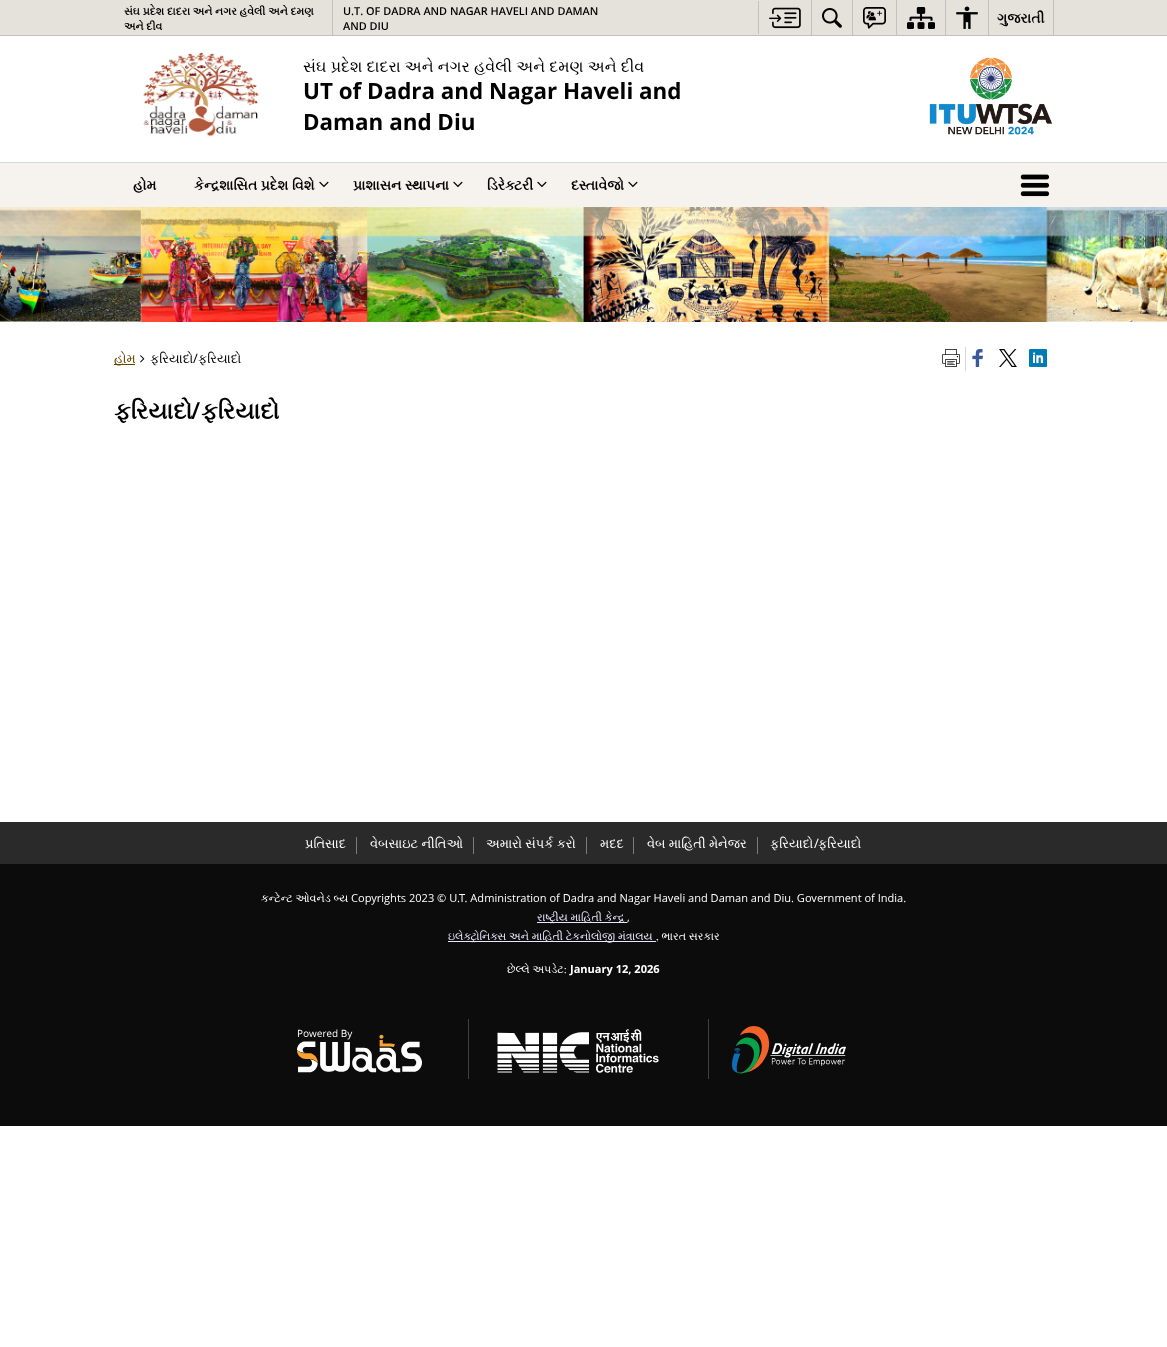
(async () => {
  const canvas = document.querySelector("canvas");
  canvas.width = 1167;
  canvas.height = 1347;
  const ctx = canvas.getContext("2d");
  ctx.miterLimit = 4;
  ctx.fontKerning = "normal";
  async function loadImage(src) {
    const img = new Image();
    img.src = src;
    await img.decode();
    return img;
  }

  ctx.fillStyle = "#ffffff";
  ctx.fillRect(0, 0, 1167, 1347);
  for (const [x, y, w, h, color] of [
    [0, 0, 1167, 35, "#e5e2db"],
    [0, 35, 1167, 1, "#c2c0c1"],
    [332, 0, 1, 35, "#c2c0c1"],
    [758, 1, 1, 33, "#c2c0c1"],
  ]) {
    ctx.fillStyle = color;
    ctx.fillRect(x, y, w, h);
  }
  ctx.drawImage(await loadImage("img/1.png"), 769, 7, 32, 22);
  ctx.fillRect(811, 0, 1, 35);
  ctx.drawImage(await loadImage("img/2.png"), 822, 8, 20, 20);
  ctx.fillRect(852, 0, 1, 35);
  ctx.drawImage(await loadImage("img/3.png"), 863, 7, 23, 22);
  ctx.fillRect(896, 0, 1, 35);
  ctx.drawImage(await loadImage("img/4.png"), 907, 7, 28, 22);
  ctx.fillRect(945, 0, 1, 35);
  ctx.drawImage(await loadImage("img/5.png"), 956, 6, 22, 23);
  ctx.fillRect(1053, 0, 1, 35);
  ctx.fillRect(988, 0, 1, 35);
  ctx.drawImage(await loadImage("img/6.png"), 143, 52, 116, 85);
  ctx.drawImage(await loadImage("img/7.png"), 929, 57, 124, 78);
  ctx.fillStyle = "#f6f3ee";
  ctx.fillRect(0, 163, 1167, 44);
  ctx.fillStyle = "#d8d8d8";
  ctx.fillRect(0, 162, 1167, 1);
  ctx.drawImage(await loadImage("img/8.png"), 319, 181, 10, 7);
  ctx.drawImage(await loadImage("img/8.png"), 453, 181, 10, 7);
  ctx.drawImage(await loadImage("img/8.png"), 537, 181, 10, 7);
  ctx.drawImage(await loadImage("img/8.png"), 628, 181, 10, 7);
  ctx.drawImage(await loadImage("img/9.png"), 1020, 174, 30, 23);
  ctx.drawImage(await loadImage("img/10.png"), 0, 207, 1167, 115);
  ctx.fillStyle = "#6a4501";
  ctx.fillRect(114, 364, 21, 1);
  ctx.drawImage(await loadImage("img/11.png"), 140, 355, 5, 8);
  ctx.fillStyle = "#d8d8d8";
  ctx.fillRect(965, 347, 1, 24);
  ctx.drawImage(await loadImage("img/12.png"), 942, 349, 18, 18);
  ctx.drawImage(await loadImage("img/13.png"), 972, 349, 11, 18);
  ctx.drawImage(await loadImage("img/14.png"), 999, 349, 18, 18);
  ctx.drawImage(await loadImage("img/15.png"), 1029, 349, 18, 18);
  for (const [x, y, w, h, color] of [
    [0, 822, 1167, 42, "#2a2a2a"],
    [356, 837, 1, 17, "#7c7c7c"],
    [473, 837, 1, 17, "#7c7c7c"],
    [586, 837, 1, 17, "#7c7c7c"],
    [633, 837, 1, 17, "#7c7c7c"],
    [757, 837, 1, 17, "#7c7c7c"],
    [0, 864, 1167, 262, "#0c0c0c"],
    [537, 922, 90, 1, "#eae6ff"],
    [448, 941, 208, 1, "#eae6ff"],
  ]) {
    ctx.fillStyle = color;
    ctx.fillRect(x, y, w, h);
  }
  ctx.drawImage(await loadImage("img/16.png"), 297, 1029, 125, 44);
  ctx.fillStyle = "#3f3f3f";
  ctx.fillRect(468, 1019, 1, 60);
  ctx.drawImage(await loadImage("img/17.png"), 497, 1029, 162, 44);
  ctx.fillRect(708, 1019, 1, 60);
  ctx.drawImage(await loadImage("img/18.png"), 732, 1026, 114, 48);
  ctx.font = "bold 10.9px FreeSerif";
  ctx.fillStyle = "#000000";
  ctx.fillText("સંઘ પ્રદેશ દાદરા અને નગર હવેલી અને દમણ", 124, 15);
  ctx.fillText("અને દીવ", 124, 30);
  ctx.font = "600 10.9px Open Sans";
  ctx.fillText("U.T. OF DADRA AND NAGAR HAVELI AND DAMAN", 343, 15);
  ctx.fillText("AND DIU", 343, 30);
  ctx.font = "bold 14px FreeSerif";
  ctx.fillText("ગુજરાતી", 997, 23);
  ctx.wordSpacing = "0.25px";
  ctx.font = "16px FreeSerif";
  ctx.fillText("સંઘ પ્રદેશ દાદરા અને નગર હવેલી અને દમણ અને દીવ", 303, 72);
  ctx.wordSpacing = "0px";
  ctx.font = "bold 22.4px Open Sans";
  ctx.fillText("UT of Dadra and Nagar Haveli and", 303, 99);
  ctx.fillText("Daman and Diu", 303, 130);
  ctx.font = "bold 14px FreeSerif";
  for (const [text, x, y] of [
    ["હોમ", 133, 190],
    ["કેન્દ્રશાસિત પ્રદેશ વિશે", 194, 190],
    ["પ્રાશાસન સ્થાપના", 353, 190],
    ["ડિરેક્ટરી", 487, 190],
    ["દસ્તાવેજો", 571, 190],
  ]) {
    ctx.fillText(text, x, y);
  }
  ctx.font = "13px FreeSerif";
  ctx.fillStyle = "#6a4501";
  ctx.fillText("હોમ", 114, 363);
  ctx.fillStyle = "#000000";
  ctx.fillText("ફરિયાદો", 150, 363);
  ctx.font = "13px Open Sans";
  ctx.fillText("/", 193, 363);
  ctx.font = "13px FreeSerif";
  ctx.fillText("ફરિયાદો", 198, 363);
  ctx.font = "bold 23.5px FreeSerif";
  ctx.fillText("ફરિયાદો", 114, 419);
  ctx.font = "600 23.5px Open Sans";
  ctx.fillText("/", 191, 419);
  ctx.font = "bold 23.5px FreeSerif";
  ctx.fillText("ફરિયાદો", 201, 419);
  ctx.font = "13px FreeSerif";
  ctx.fillStyle = "#ffffff";
  for (const [text, x, y] of [
    ["પ્રતિસાદ", 305, 848],
    ["વેબસાઇટ નીતિઓ", 370, 848],
    ["અમારો સંપર્ક કરો", 486, 848],
    ["મદદ", 600, 848],
    ["વેબ માહિતી મેનેજર", 647, 848],
    ["ફરિયાદો", 770, 848],
  ]) {
    ctx.fillText(text, x, y);
  }
  ctx.font = "13px Open Sans";
  ctx.fillText("/", 814, 848);
  ctx.font = "13px FreeSerif";
  ctx.fillText("ફરિયાદો", 818, 848);
  ctx.font = "11.05px FreeSerif";
  ctx.fillText("કન્ટેન્ટ ઓવનેડ બ્ય", 261, 902);
  ctx.font = "11.05px Open Sans";
  ctx.fillText("Copyrights 2023 © U.T. Administration of Dadra and Nagar Haveli and Daman and Diu. Government of India.", 351, 902);
  ctx.font = "11.05px FreeSerif";
  ctx.fillStyle = "#eae6ff";
  ctx.fillText("રાષ્ટ્રીય માહિતી કેન્દ્ર", 537, 921);
  ctx.font = "11.05px Open Sans";
  ctx.fillStyle = "#ffffff";
  ctx.fillText(",", 627, 921);
  ctx.font = "11.05px FreeSerif";
  ctx.fillStyle = "#eae6ff";
  ctx.fillText("ઇલેક્ટ્રોનિક્સ અને માહિતી ટેકનોલોજી મંત્રાલય", 448, 940);
  ctx.fillStyle = "#ffffff";
  ctx.fillText(", ભારત સરકાર", 656, 940);
  ctx.fillText("છેલ્લે અપડેટ:", 507, 973);
  ctx.font = "bold 11.05px Open Sans";
  ctx.fillText("January 12, 2026", 570, 973);
})();
